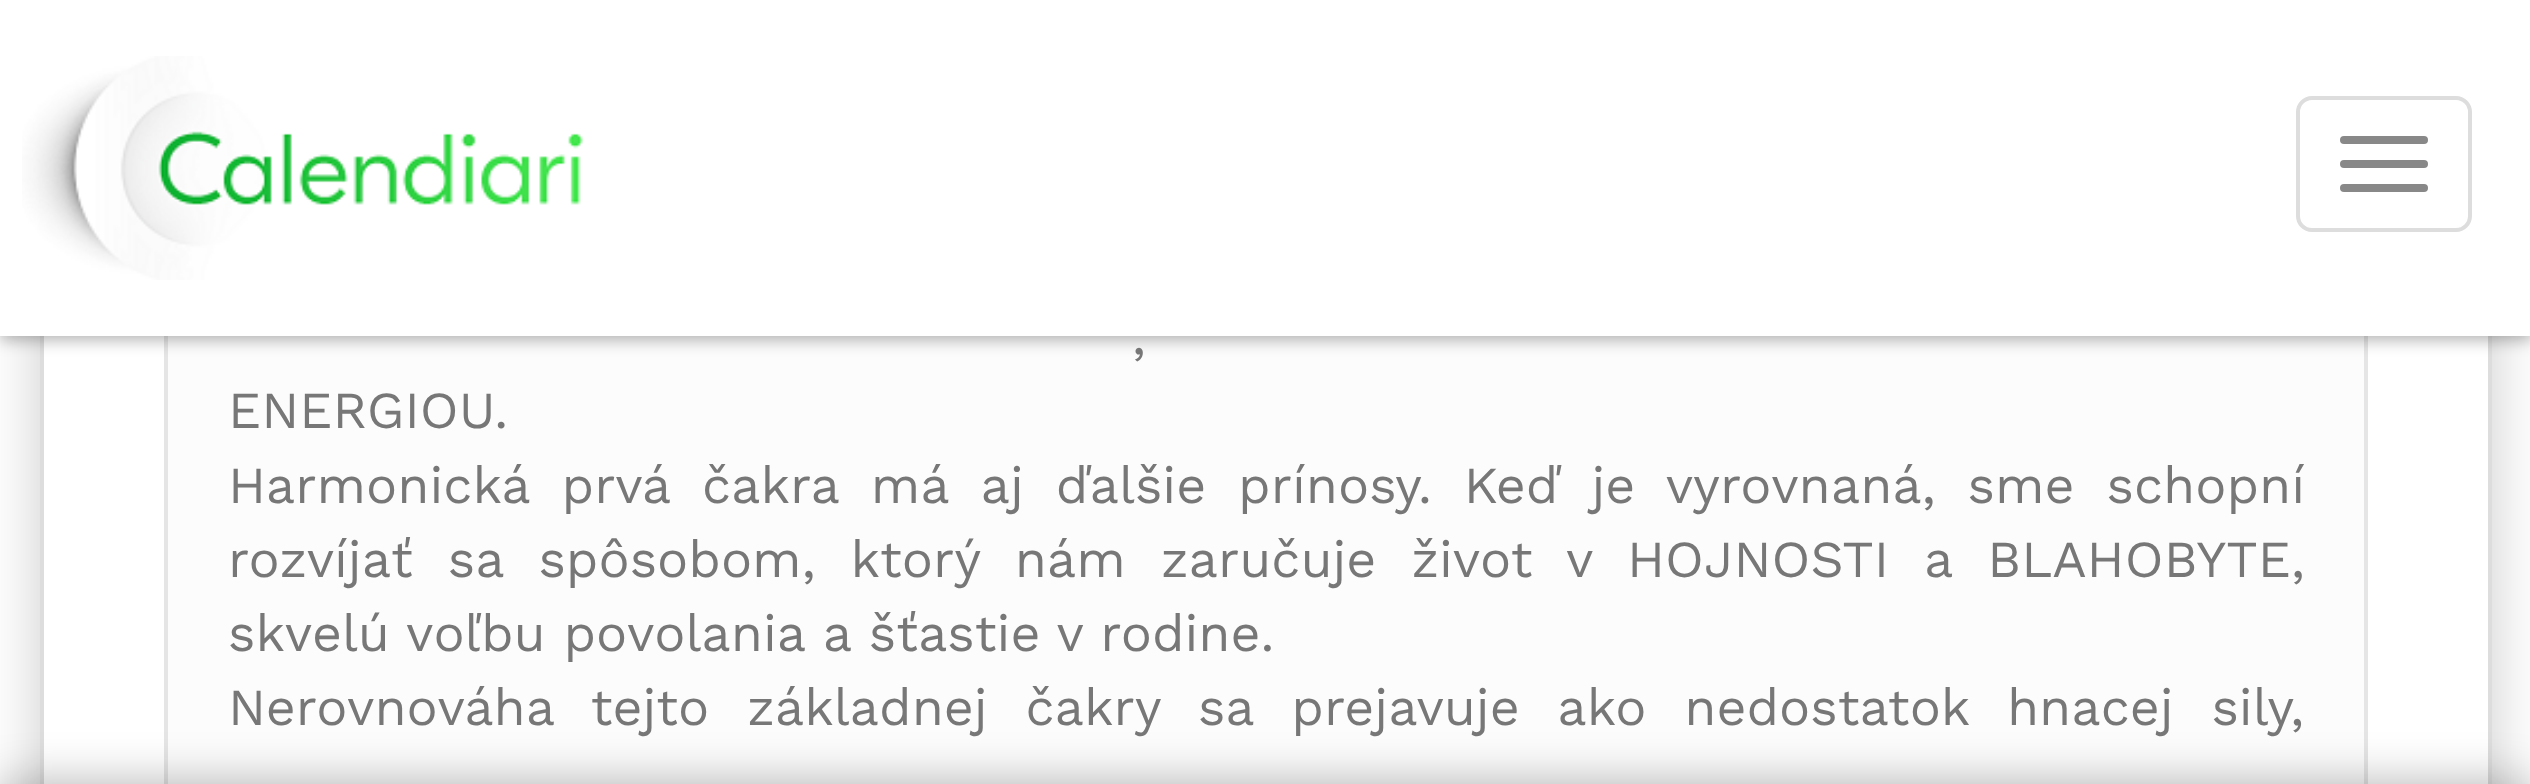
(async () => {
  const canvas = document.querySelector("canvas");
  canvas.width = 2530;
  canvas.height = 784;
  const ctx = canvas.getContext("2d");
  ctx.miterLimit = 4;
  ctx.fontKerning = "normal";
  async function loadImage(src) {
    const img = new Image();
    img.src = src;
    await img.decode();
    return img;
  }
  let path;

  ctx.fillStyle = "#ffffff";
  ctx.fillRect(0, 0, 2530, 784);
  ctx.save();
  path = new Path2D("M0 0H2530V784H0ZM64-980H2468C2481.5-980 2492-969.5 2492-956V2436C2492 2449.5 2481.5 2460 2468 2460H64C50.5 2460 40 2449.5 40 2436V-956C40-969.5 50.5-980 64-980Z");
  ctx.clip(path, "evenodd");
  ctx.fillStyle = "rgba(0, 0, 0, 0.2)";
  ctx.filter = "blur(30px)";
  ctx.beginPath();
  ctx.roundRect(40, -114, 2452, 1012, 24);
  ctx.fill();
  ctx.filter = "none";
  ctx.restore();
  ctx.strokeStyle = "#dddddd";
  ctx.lineWidth = 4;
  ctx.strokeRect(42, -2, 2448, 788);
  ctx.fillStyle = "#fcfcfc";
  ctx.fillRect(168, 336, 2196, 448);
  ctx.strokeStyle = "#e5e5e5";
  ctx.strokeRect(166, -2, 2200, 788);
  ctx.fillStyle = "rgba(0, 0, 0, 0.3)";
  ctx.filter = "blur(8px)";
  ctx.beginPath();
  ctx.rect(0, 4, 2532, 336);
  ctx.fill();
  ctx.filter = "none";
  ctx.fillStyle = "#ffffff";
  ctx.fillRect(0, 0, 2530, 336);
  ctx.drawImage(await loadImage("img/1.png"), 22, 56, 562, 224);
  ctx.beginPath();
  ctx.roundRect(2298, 98, 172, 132, 14);
  ctx.strokeStyle = "#dddddd";
  ctx.stroke();
  ctx.fillStyle = "#888888";
  ctx.beginPath();
  ctx.roundRect(2340, 136, 88, 8, 4);
  ctx.fill();
  ctx.beginPath();
  ctx.roundRect(2340, 160, 88, 8, 4);
  ctx.fill();
  ctx.beginPath();
  ctx.roundRect(2340, 184, 88, 8, 4);
  ctx.fill();
  ctx.fillStyle = "rgba(0, 0, 0, 0.3)";
  ctx.filter = "blur(24px)";
  ctx.beginPath();
  ctx.rect(0, 784, 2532, 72);
  ctx.fill();
  ctx.filter = "none";
  ctx.wordSpacing = "17px";
  ctx.font = "52px Work Sans";
  ctx.fillStyle = "#777777";
  ctx.fillText(",", 1132, 354);
  ctx.wordSpacing = "0px";
  ctx.fillText("ENERGIOU.", 228, 428);
  ctx.wordSpacing = "14.25px";
  ctx.fillText("Harmonická prvá čakra má aj ďalšie prínosy. Keď je vyrovnaná, sme schopní", 228, 503);
  ctx.wordSpacing = "17.25px";
  ctx.fillText("rozvíjať sa spôsobom, ktorý nám zaručuje život v HOJNOSTI a BLAHOBYTE,", 228, 577);
  ctx.wordSpacing = "0px";
  ctx.fillText("skvelú voľbu povolania a šťastie v rodine.", 228, 651);
  ctx.wordSpacing = "20px";
  ctx.fillText("Nerovnováha tejto základnej čakry sa prejavuje ako nedostatok hnacej sily,", 228, 725);
})();
